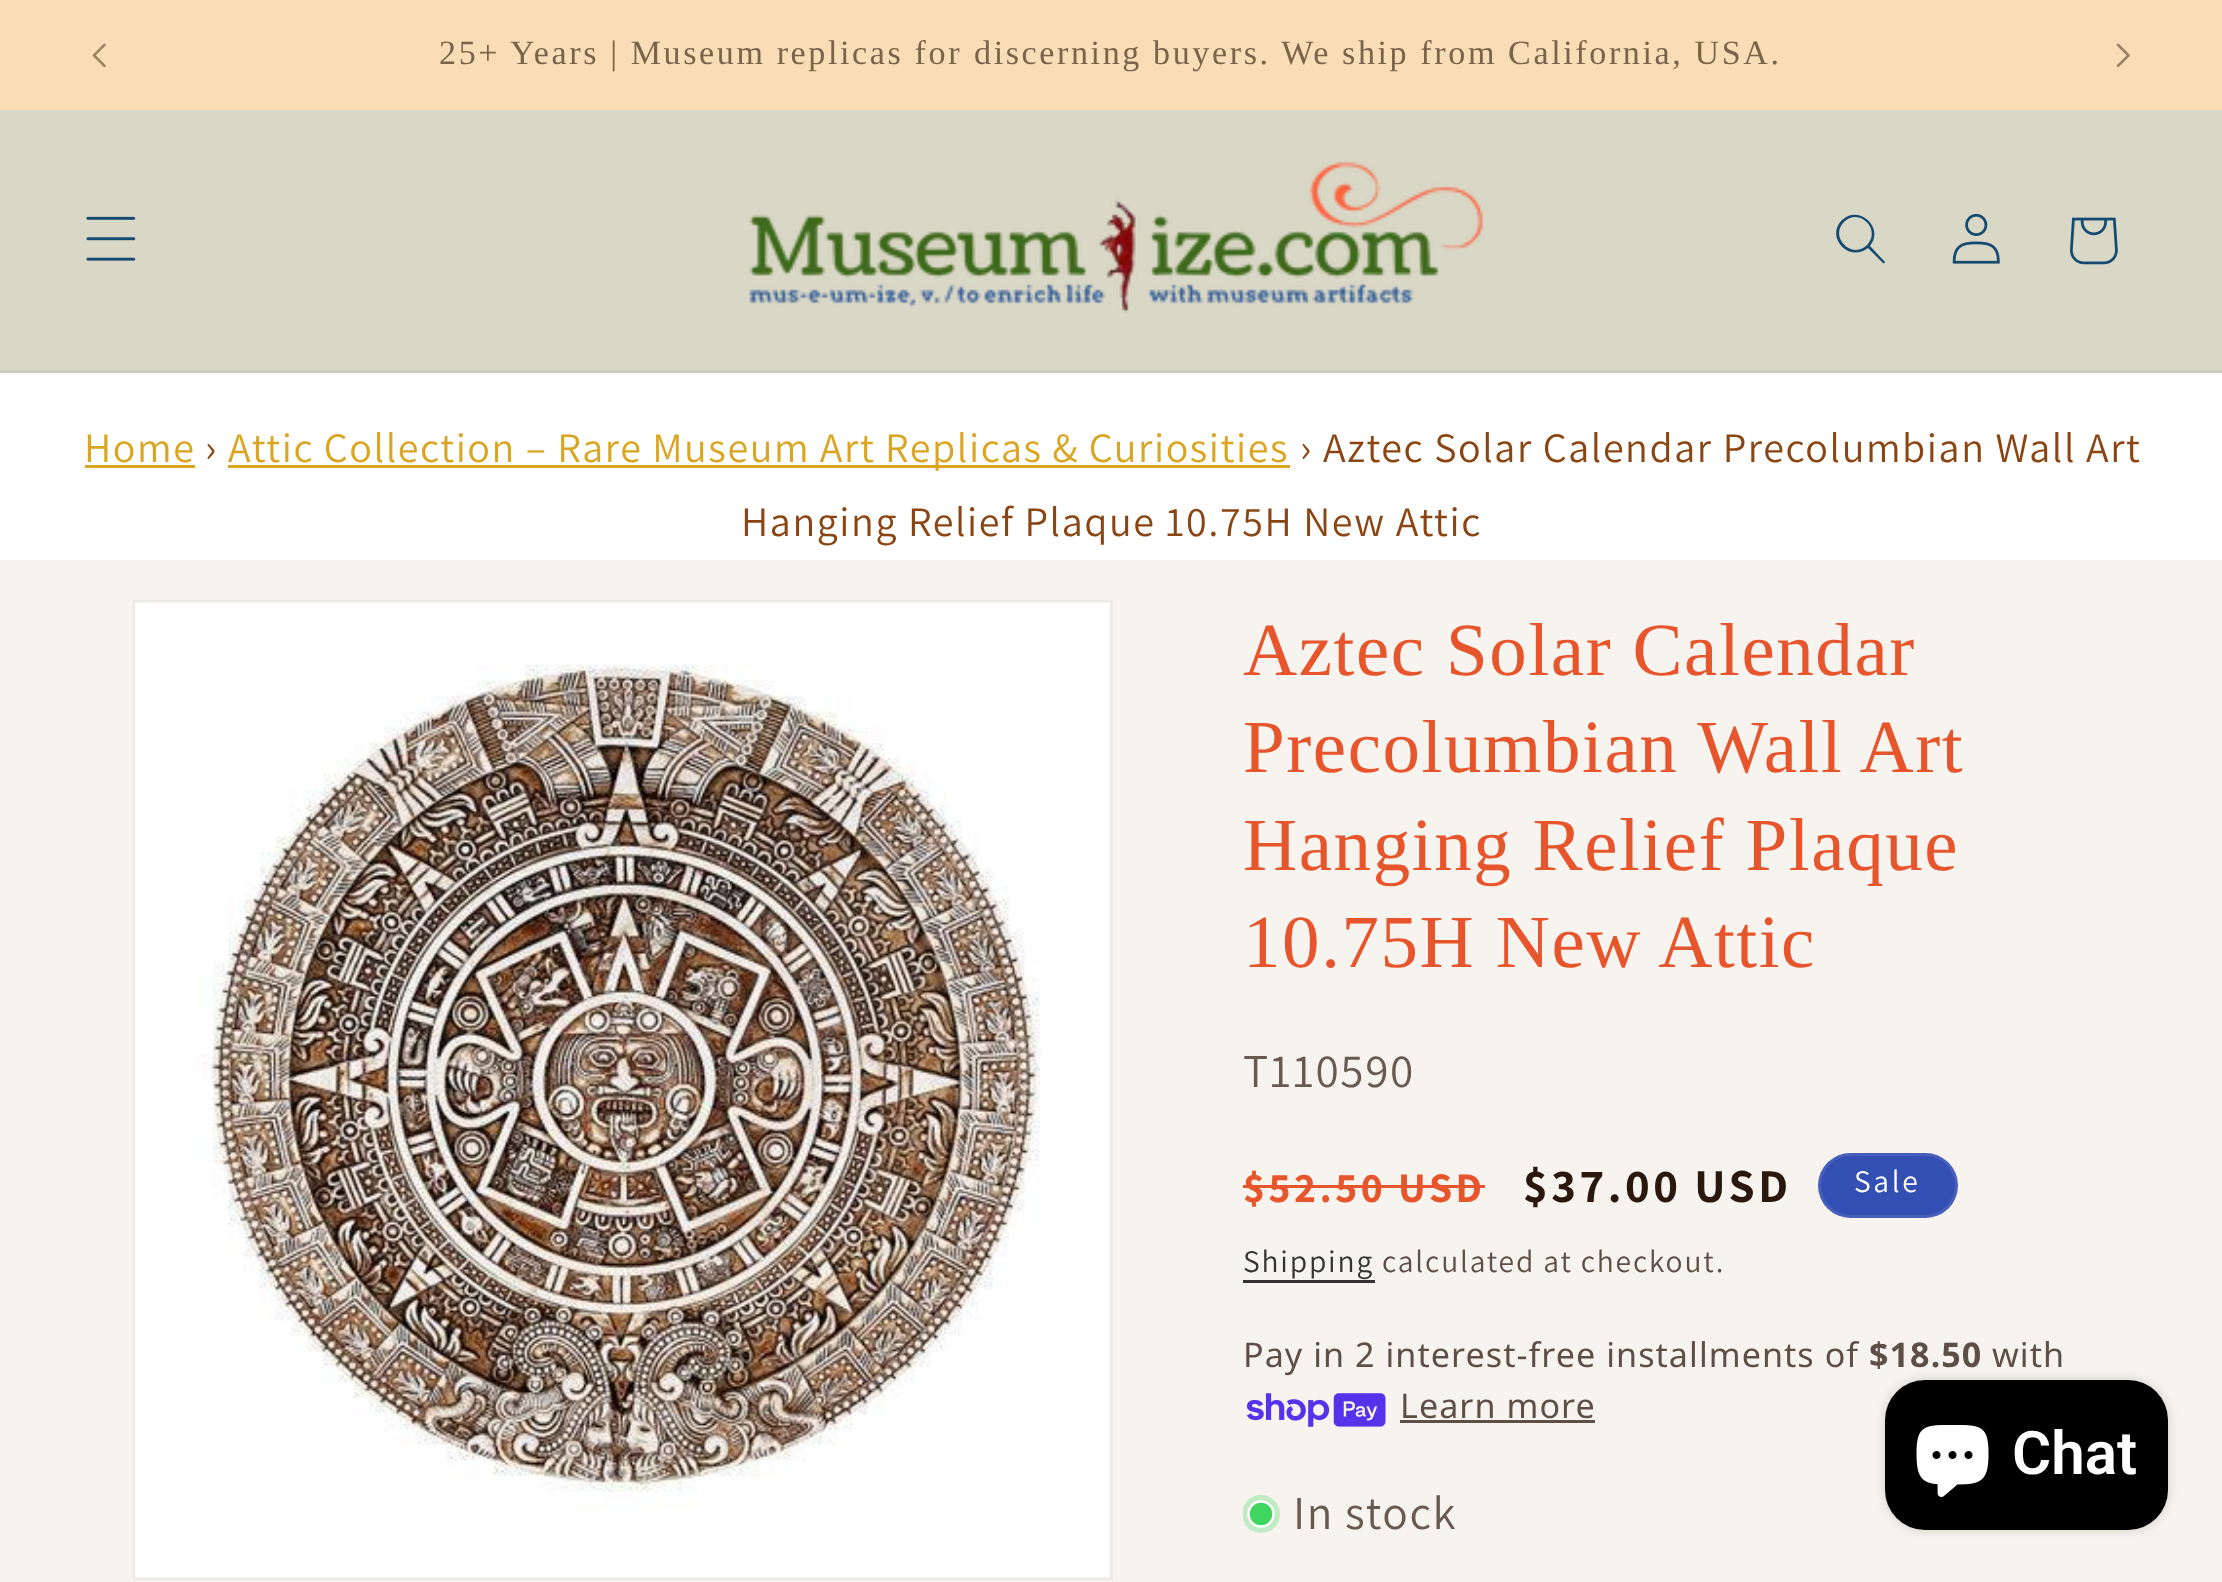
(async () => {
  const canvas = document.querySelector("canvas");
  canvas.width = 2222;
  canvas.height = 1582;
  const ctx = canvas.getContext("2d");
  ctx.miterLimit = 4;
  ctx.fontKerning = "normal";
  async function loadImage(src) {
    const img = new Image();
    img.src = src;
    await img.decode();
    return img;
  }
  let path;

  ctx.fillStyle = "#f7f4ef";
  ctx.fillRect(0, 0, 2222, 1582);
  ctx.fillStyle = "#f9ddb7";
  ctx.fillRect(0, 0, 2222, 110);
  ctx.drawImage(await loadImage("img/1.png"), 92, 43, 14, 25);
  ctx.drawImage(await loadImage("img/2.png"), 2116, 43, 14, 25);
  ctx.fillStyle = "#d9d7c5";
  ctx.fillRect(0, 110, 2222, 260);
  ctx.fillStyle = "#c9ccbe";
  ctx.fillRect(0, 370, 2222, 3);
  ctx.drawImage(await loadImage("img/3.png"), 86, 216, 50, 45);
  ctx.drawImage(await loadImage("img/4.png"), 749, 161, 735, 152);
  ctx.fillStyle = "#154a72";
  path = new Path2D("M1867 245C1852 260 1829 237 1844 222C1859 207 1882 230 1867 245M1868 248C1849 263 1825 237 1842 220C1859 204 1885 228 1870 246L1885 262C1885 263 1883 264 1883 263Z");
  ctx.fill(path, "evenodd");
  ctx.drawImage(await loadImage("img/5.png"), 1952, 213, 48, 51);
  ctx.drawImage(await loadImage("img/6.png"), 2070, 217, 48, 48);
  for (const [x, y, w, h, color] of [
    [0, 373, 2222, 187, "#ffffff"],
    [85, 465, 110, 3, "#daa520"],
    [228, 465, 1062, 3, "#daa520"],
  ]) {
    ctx.fillStyle = color;
    ctx.fillRect(x, y, w, h);
  }
  ctx.strokeStyle = "#ede9e4";
  ctx.lineWidth = 3;
  ctx.strokeRect(134.5, 601.5, 977, 977);
  ctx.drawImage(await loadImage("img/7.png"), 135, 602, 975, 976);
  ctx.fillStyle = "#e7552c";
  ctx.fillRect(1243, 1185, 242, 3);
  ctx.fillStyle = "#334fb4";
  ctx.beginPath();
  ctx.roundRect(1818, 1153, 140, 65, 32.5);
  ctx.fill();
  ctx.beginPath();
  ctx.roundRect(1819.5, 1154.5, 137, 62, 31);
  ctx.strokeStyle = "rgba(255, 255, 255, 0.1)";
  ctx.stroke();
  ctx.fillStyle = "#343433";
  ctx.fillRect(1243, 1280, 132, 3);
  ctx.drawImage(await loadImage("img/8.png"), 1247, 1393, 139, 34);
  ctx.fillStyle = "#5e4f46";
  ctx.fillRect(1400, 1420, 195, 3);
  ctx.save();
  ctx.beginPath();
  ctx.rect(1243, 1495, 37, 38);
  ctx.clip();
  ctx.fillStyle = "#c0ebc4";
  ctx.beginPath();
  ctx.arc(1261, 1514, 19, 0, Math.PI * 2);
  ctx.fill();
  ctx.restore();
  ctx.fillStyle = "#3ed660";
  ctx.beginPath();
  ctx.arc(1261, 1514, 12.5, 0, Math.PI * 2);
  ctx.fill();
  ctx.strokeStyle = "#ffffff";
  ctx.lineWidth = 2.5;
  ctx.stroke();
  ctx.fillStyle = "rgba(0, 0, 0, 0.15)";
  ctx.filter = "blur(6px)";
  ctx.beginPath();
  ctx.roundRect(1885, 1380, 283, 150, 40);
  ctx.fill();
  ctx.filter = "none";
  ctx.fillStyle = "#000000";
  ctx.beginPath();
  ctx.roundRect(1885, 1380, 283, 150, 40);
  ctx.fill();
  ctx.drawImage(await loadImage("img/9.png"), 1916, 1425, 73, 72);
  ctx.letterSpacing = "2.6px";
  ctx.font = "34.1px Liberation Serif";
  ctx.fillStyle = "#796449";
  ctx.fillText("25+ Years | Museum replicas for", 439, 64);
  ctx.fillText("discerning buyers. We ship from California, USA.", 974, 64);
  ctx.letterSpacing = "1.57px";
  ctx.font = "42px Assistant";
  ctx.fillStyle = "#daa520";
  ctx.fillText("Home", 84, 462);
  ctx.fillStyle = "#8b4513";
  ctx.fillText("›", 205, 462);
  ctx.wordSpacing = "-0.25px";
  ctx.fillStyle = "#daa520";
  ctx.fillText("Attic Collection – Rare Museum Art Replicas & Curiosities", 228, 462);
  ctx.wordSpacing = "0px";
  ctx.fillStyle = "#8b4513";
  for (const [text, x, y] of [
    ["›", 1300, 462],
    ["Aztec Solar Calendar Precolumbian Wall Art", 1323, 462],
    ["Hanging Relief Plaque 10.75H New Attic", 741, 536],
  ]) {
    ctx.fillText(text, x, y);
  }
  ctx.font = "75px Liberation Serif";
  ctx.fillStyle = "#e7552c";
  for (const [text, x, y] of [
    ["Aztec Solar Calendar", 1243, 675],
    ["Precolumbian Wall Art", 1243, 772],
    ["Hanging Relief Plaque", 1243, 870],
    ["10.75H New Attic", 1243, 967],
  ]) {
    ctx.fillText(text, x, y);
  }
  ctx.font = "47.25px Assistant";
  ctx.fillStyle = "#685a51";
  ctx.fillText("T110590", 1243, 1087);
  ctx.letterSpacing = "3.5px";
  ctx.font = "bold 42px Assistant";
  ctx.fillStyle = "#e7552c";
  ctx.fillText("$52.50 USD", 1243, 1202);
  ctx.font = "bold 47.25px Assistant";
  ctx.fillStyle = "#2b180d";
  ctx.fillText("$37.00 USD", 1523, 1202);
  ctx.letterSpacing = "2.6px";
  ctx.font = "31.5px Assistant";
  ctx.fillStyle = "#ffffff";
  ctx.fillText("Sale", 1854, 1192);
  ctx.letterSpacing = "1.8px";
  ctx.fillStyle = "#343433";
  ctx.fillText("Shipping", 1243, 1272);
  ctx.fillStyle = "#5e4f46";
  ctx.fillText("calculated at checkout.", 1382, 1272);
  ctx.letterSpacing = "1.05px";
  ctx.font = "34.1px Noto Sans";
  ctx.fillText("Pay in 2 interest-free installments of", 1243, 1367);
  ctx.font = "bold 34.1px Noto Sans";
  ctx.fillText("$18.50", 1869, 1367);
  ctx.font = "34.1px Noto Sans";
  ctx.fillText("with", 1992, 1367);
  ctx.fillText("Learn more", 1400, 1418);
  ctx.letterSpacing = "1.57px";
  ctx.font = "47.25px Assistant";
  ctx.fillStyle = "#685a51";
  ctx.fillText("In stock", 1293, 1529);
  ctx.letterSpacing = "0px";
  ctx.font = "600 60px Roboto";
  ctx.fillStyle = "#ffffff";
  ctx.fillText("Chat", 2012, 1474);
})();
